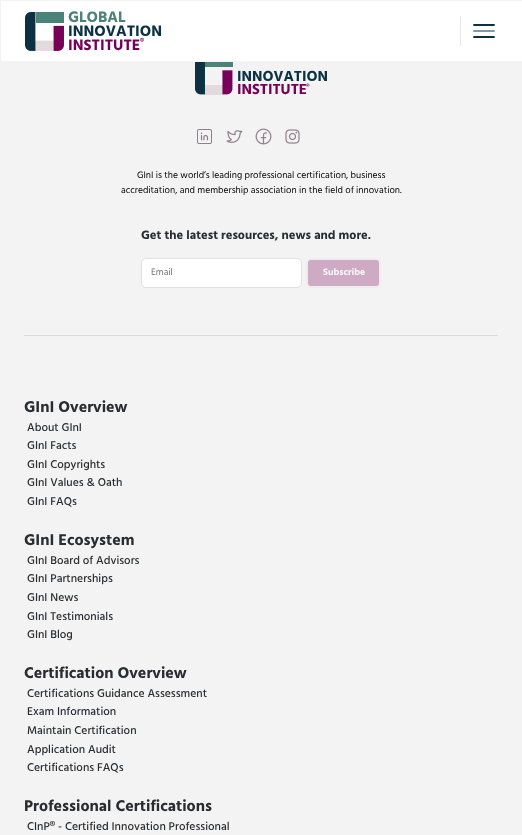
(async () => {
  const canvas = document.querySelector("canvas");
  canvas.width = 522;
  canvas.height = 835;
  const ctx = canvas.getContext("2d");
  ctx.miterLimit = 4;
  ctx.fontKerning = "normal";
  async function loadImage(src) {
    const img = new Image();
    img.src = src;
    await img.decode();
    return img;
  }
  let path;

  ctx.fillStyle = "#f3f3f3";
  ctx.fillRect(0, 0, 522, 835);
  ctx.fillStyle = "#ffffff";
  ctx.fillRect(1, 1, 521, 60);
  ctx.drawImage(await loadImage("img/1.png"), 25, 12, 39, 39);
  ctx.fillStyle = "#e6e6e6";
  ctx.beginPath();
  ctx.roundRect(460, 16, 1, 30, 0.5);
  ctx.fill();
  path = new Path2D("M494 25H474");
  ctx.strokeStyle = "#0b3142";
  ctx.lineWidth = 1.9;
  ctx.lineCap = "round";
  ctx.stroke(path);
  path = new Path2D("M494 31H474");
  ctx.strokeStyle = "#8598a1";
  ctx.stroke(path);
  path = new Path2D("M494 37H474");
  ctx.strokeStyle = "#0b3142";
  ctx.stroke(path);
  ctx.drawImage(await loadImage("img/2.png"), 195, 62, 38, 33);
  ctx.drawImage(await loadImage("img/3.png"), 197, 129, 15, 15);
  ctx.drawImage(await loadImage("img/4.png"), 226, 130, 17, 13);
  ctx.drawImage(await loadImage("img/5.png"), 255, 128, 17, 17);
  ctx.drawImage(await loadImage("img/6.png"), 285, 129, 15, 15);
  ctx.fillStyle = "#ffffff";
  ctx.beginPath();
  ctx.roundRect(141.5, 258.5, 160, 29, 4.5);
  ctx.fill();
  ctx.strokeStyle = "#e0e0e0";
  ctx.lineWidth = 1;
  ctx.stroke();
  ctx.fillStyle = "#ceaac4";
  ctx.beginPath();
  ctx.roundRect(307, 259, 73, 28, 4);
  ctx.fill();
  ctx.strokeStyle = "#ededed";
  ctx.lineWidth = 2;
  ctx.stroke();
  ctx.fillStyle = "#dbdbdb";
  ctx.beginPath();
  ctx.roundRect(24, 335, 474, 1, 0.5);
  ctx.fill();
  ctx.font = "bold 15.5px Hind Madurai";
  ctx.fillStyle = "#4b8279";
  ctx.fillText("GLOBAL", 68, 22);
  ctx.fillStyle = "#0b3142";
  ctx.fillText("INNOVATION", 68, 36);
  ctx.fillStyle = "#770058";
  ctx.fillText("INSTITUTE", 68, 50);
  ctx.font = "bold 8px Hind Madurai";
  ctx.fillText("®", 140, 44);
  ctx.font = "bold 15px Hind Madurai";
  ctx.fillStyle = "#0b3142";
  ctx.fillText("INNOVATION", 237, 81);
  ctx.fillStyle = "#770058";
  ctx.fillText("INSTITUTE", 237, 94);
  ctx.font = "bold 7px Hind Madurai";
  ctx.fillText("®", 306, 89);
  ctx.font = "9.6px Hind Madurai";
  ctx.fillStyle = "#000000";
  ctx.fillText("GInI is the world’s leading professional certification, business", 137, 178);
  ctx.fillText("accreditation, and membership association in the field of innovation.", 121, 193);
  ctx.font = "bold 12.5px Hind Madurai";
  ctx.fillStyle = "#292d31";
  ctx.fillText("Get the latest resources, news and more.", 141, 239);
  ctx.font = "9.6px Hind Madurai";
  ctx.fillStyle = "#757575";
  ctx.fillText("Email", 151, 275);
  ctx.font = "bold 9.6px Hind Madurai";
  ctx.fillStyle = "#f7f7f7";
  ctx.fillText("Subscribe", 323, 275);
  ctx.font = "bold 16px Hind Madurai";
  ctx.fillStyle = "#292d31";
  ctx.fillText("GInI Overview", 24, 412);
  ctx.font = "500 11.6px Hind Madurai";
  for (const [text, x, y] of [
    ["About GInI", 27, 431],
    ["GInI Facts", 27, 449],
    ["GInI Copyrights", 27, 468],
    ["GInI Values & Oath", 27, 486],
    ["GInI FAQs", 27, 505],
  ]) {
    ctx.fillText(text, x, y);
  }
  ctx.font = "bold 16px Hind Madurai";
  ctx.fillText("GInI Ecosystem", 24, 545);
  ctx.font = "500 11.6px Hind Madurai";
  for (const [text, x, y] of [
    ["GInI Board of Advisors", 27, 564],
    ["GInI Partnerships", 27, 582],
    ["GInI News", 27, 601],
    ["GInI Testimonials", 27, 620],
    ["GInI Blog", 27, 638],
  ]) {
    ctx.fillText(text, x, y);
  }
  ctx.font = "bold 16px Hind Madurai";
  ctx.fillText("Certification Overview", 24, 678);
  ctx.font = "500 11.6px Hind Madurai";
  for (const [text, x, y] of [
    ["Certifications Guidance Assessment", 27, 697],
    ["Exam Information", 27, 715],
    ["Maintain Certification", 27, 734],
    ["Application Audit", 27, 753],
    ["Certifications FAQs", 27, 771],
  ]) {
    ctx.fillText(text, x, y);
  }
  ctx.font = "bold 16px Hind Madurai";
  ctx.fillText("Professional Certifications", 24, 811);
  ctx.font = "500 11.6px Hind Madurai";
  ctx.fillText("CInP® - Certified Innovation Professional", 27, 830);
})();
